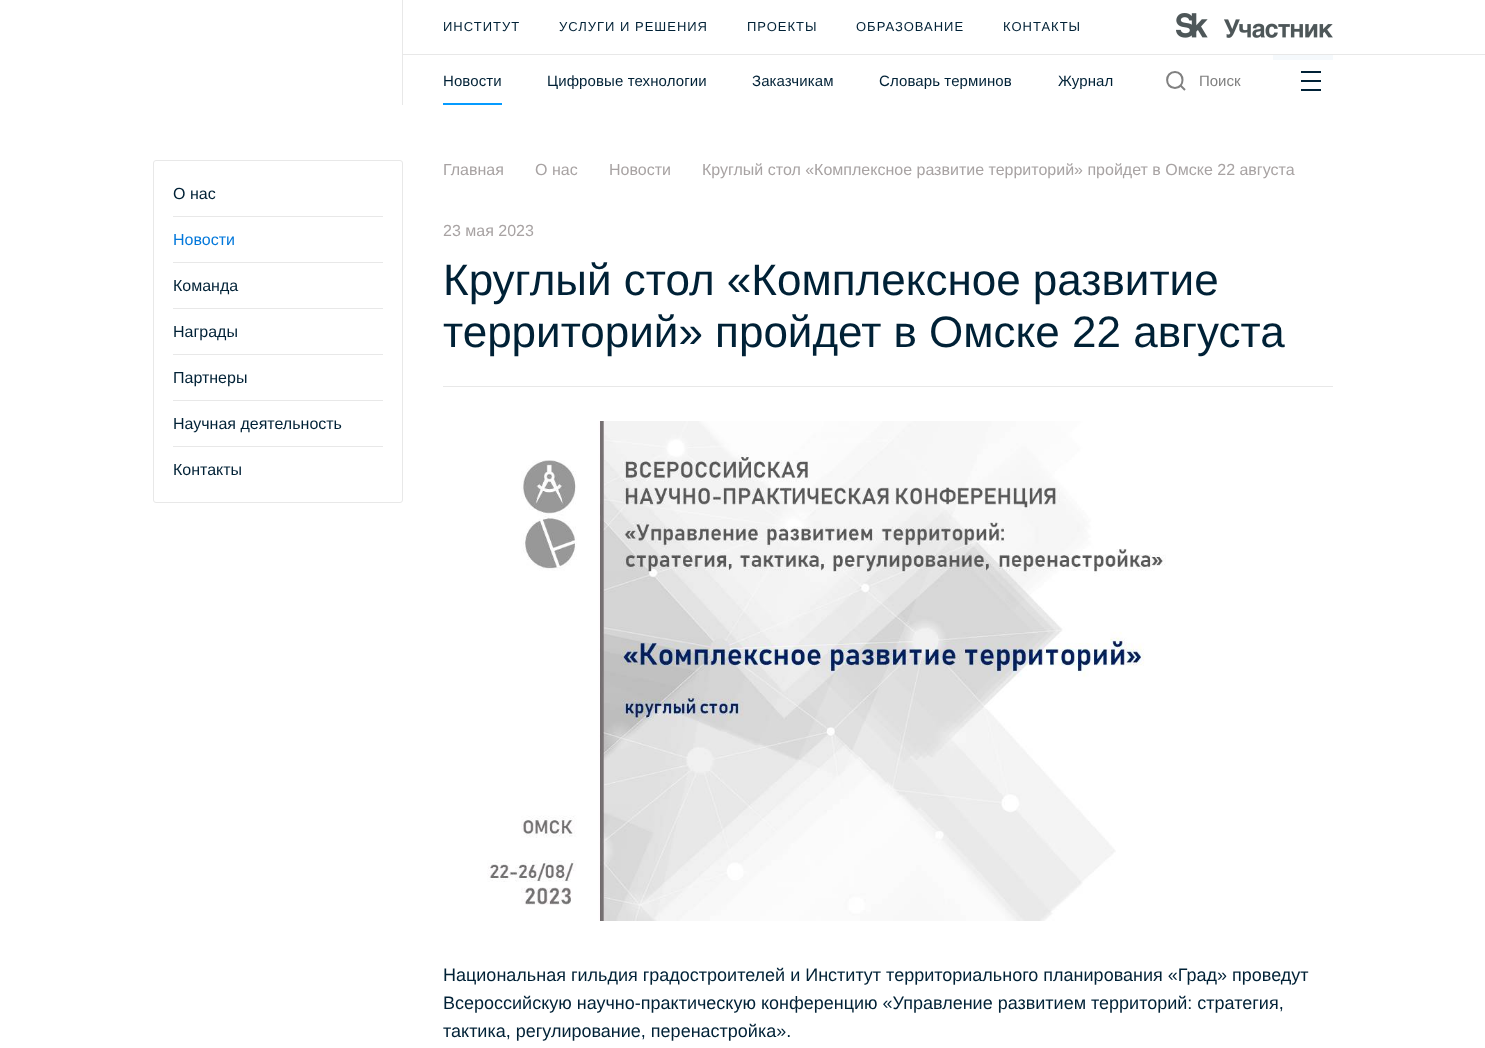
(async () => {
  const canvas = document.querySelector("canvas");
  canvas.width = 1485;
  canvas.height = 1048;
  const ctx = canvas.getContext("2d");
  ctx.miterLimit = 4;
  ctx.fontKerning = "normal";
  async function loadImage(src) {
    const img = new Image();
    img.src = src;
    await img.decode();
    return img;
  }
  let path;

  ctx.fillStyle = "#ffffff";
  ctx.fillRect(0, 0, 1485, 1048);
  ctx.fillStyle = "#e8e8e8";
  ctx.fillRect(402, 0, 1, 105);
  ctx.drawImage(await loadImage("img/1.png"), 1176, 13, 157, 25);
  ctx.fillStyle = "#f5f9fc";
  ctx.fillRect(1273, 55, 60, 5);
  ctx.fillStyle = "#059bff";
  ctx.fillRect(443, 103, 59, 2);
  path = new Path2D("M1175 88C1185 88 1185 72 1175 72C1164.5 72 1164.5 88 1175 88Z");
  ctx.strokeStyle = "#808080";
  ctx.lineWidth = 2;
  ctx.lineCap = "round";
  ctx.lineJoin = "round";
  ctx.stroke(path);
  path = new Path2D("M1180.5 85.5L1185 90");
  ctx.lineCap = "butt";
  ctx.stroke(path);
  for (const [x, y, w, h, color] of [
    [1301, 71, 20, 2, "#002136"],
    [1301, 80, 20, 2, "#002136"],
    [1301, 89, 20, 2, "#002136"],
    [403, 54, 1082, 1, "#e8e8e8"],
  ]) {
    ctx.fillStyle = color;
    ctx.fillRect(x, y, w, h);
  }
  ctx.beginPath();
  ctx.roundRect(153.5, 160.5, 249, 342, 2.5);
  ctx.strokeStyle = "#e8e8e8";
  ctx.lineWidth = 1;
  ctx.lineJoin = "miter";
  ctx.stroke();
  for (const [x, y, w, h, color] of [
    [173, 216, 210, 1, "#e8e8e8"],
    [173, 262, 210, 1, "#e8e8e8"],
    [173, 308, 210, 1, "#e8e8e8"],
    [173, 354, 210, 1, "#e8e8e8"],
    [173, 400, 210, 1, "#e8e8e8"],
    [173, 446, 210, 1, "#e8e8e8"],
    [443, 386, 890, 1, "#e8e8e8"],
  ]) {
    ctx.fillStyle = color;
    ctx.fillRect(x, y, w, h);
  }
  ctx.drawImage(await loadImage("img/2.png"), 487, 421, 679, 500);
  ctx.letterSpacing = "1px";
  ctx.font = "13px Liberation Sans";
  ctx.fillStyle = "#002136";
  for (const [text, x, y] of [
    ["ИНСТИТУТ", 443, 31],
    ["УСЛУГИ И РЕШЕНИЯ", 559, 31],
    ["ПРОЕКТЫ", 747, 31],
    ["ОБРАЗОВАНИЕ", 856, 31],
    ["КОНТАКТЫ", 1003, 31],
  ]) {
    ctx.fillText(text, x, y);
  }
  ctx.letterSpacing = "0.1px";
  ctx.font = "15px Liberation Sans";
  for (const [text, x, y] of [
    ["Новости", 443, 86],
    ["Цифровые технологии", 547, 86],
    ["Заказчикам", 752, 86],
    ["Словарь терминов", 879, 86],
    ["Журнал", 1058, 86],
  ]) {
    ctx.fillText(text, x, y);
  }
  ctx.letterSpacing = "0px";
  ctx.fillStyle = "#808080";
  ctx.fillText("Поиск", 1199, 86);
  ctx.font = "16px Liberation Sans";
  ctx.fillStyle = "#002136";
  ctx.fillText("О нас", 173, 199);
  ctx.fillStyle = "#0378db";
  ctx.fillText("Новости", 173, 245);
  ctx.fillStyle = "#002136";
  for (const [text, x, y] of [
    ["Команда", 173, 291],
    ["Награды", 173, 337],
    ["Партнеры", 173, 383],
    ["Научная деятельность", 173, 429],
    ["Контакты", 173, 475],
  ]) {
    ctx.fillText(text, x, y);
  }
  ctx.fillStyle = "#a8a3a3";
  for (const [text, x, y] of [
    ["Главная", 443, 175],
    ["О нас", 535, 175],
    ["Новости", 609, 175],
    ["Круглый стол «Комплексное развитие территорий» пройдет в Омске 22 августа", 702, 175],
    ["23 мая 2023", 443, 236],
  ]) {
    ctx.fillText(text, x, y);
  }
  ctx.font = "44px Liberation Sans";
  ctx.fillStyle = "#002136";
  ctx.fillText("Круглый стол «Комплексное развитие", 443, 295);
  ctx.fillText("территорий» пройдет в Омске 22 августа", 443, 347);
  ctx.font = "18px Liberation Sans";
  for (const [text, x, y] of [
    ["Национальная гильдия градостроителей и Институт территориального планирования «Град» проведут", 443, 981],
    ["Всероссийскую научно-практическую конференцию «Управление развитием территорий: стратегия,", 443, 1009],
    ["тактика, регулирование, перенастройка».", 443, 1037],
  ]) {
    ctx.fillText(text, x, y);
  }
})();
